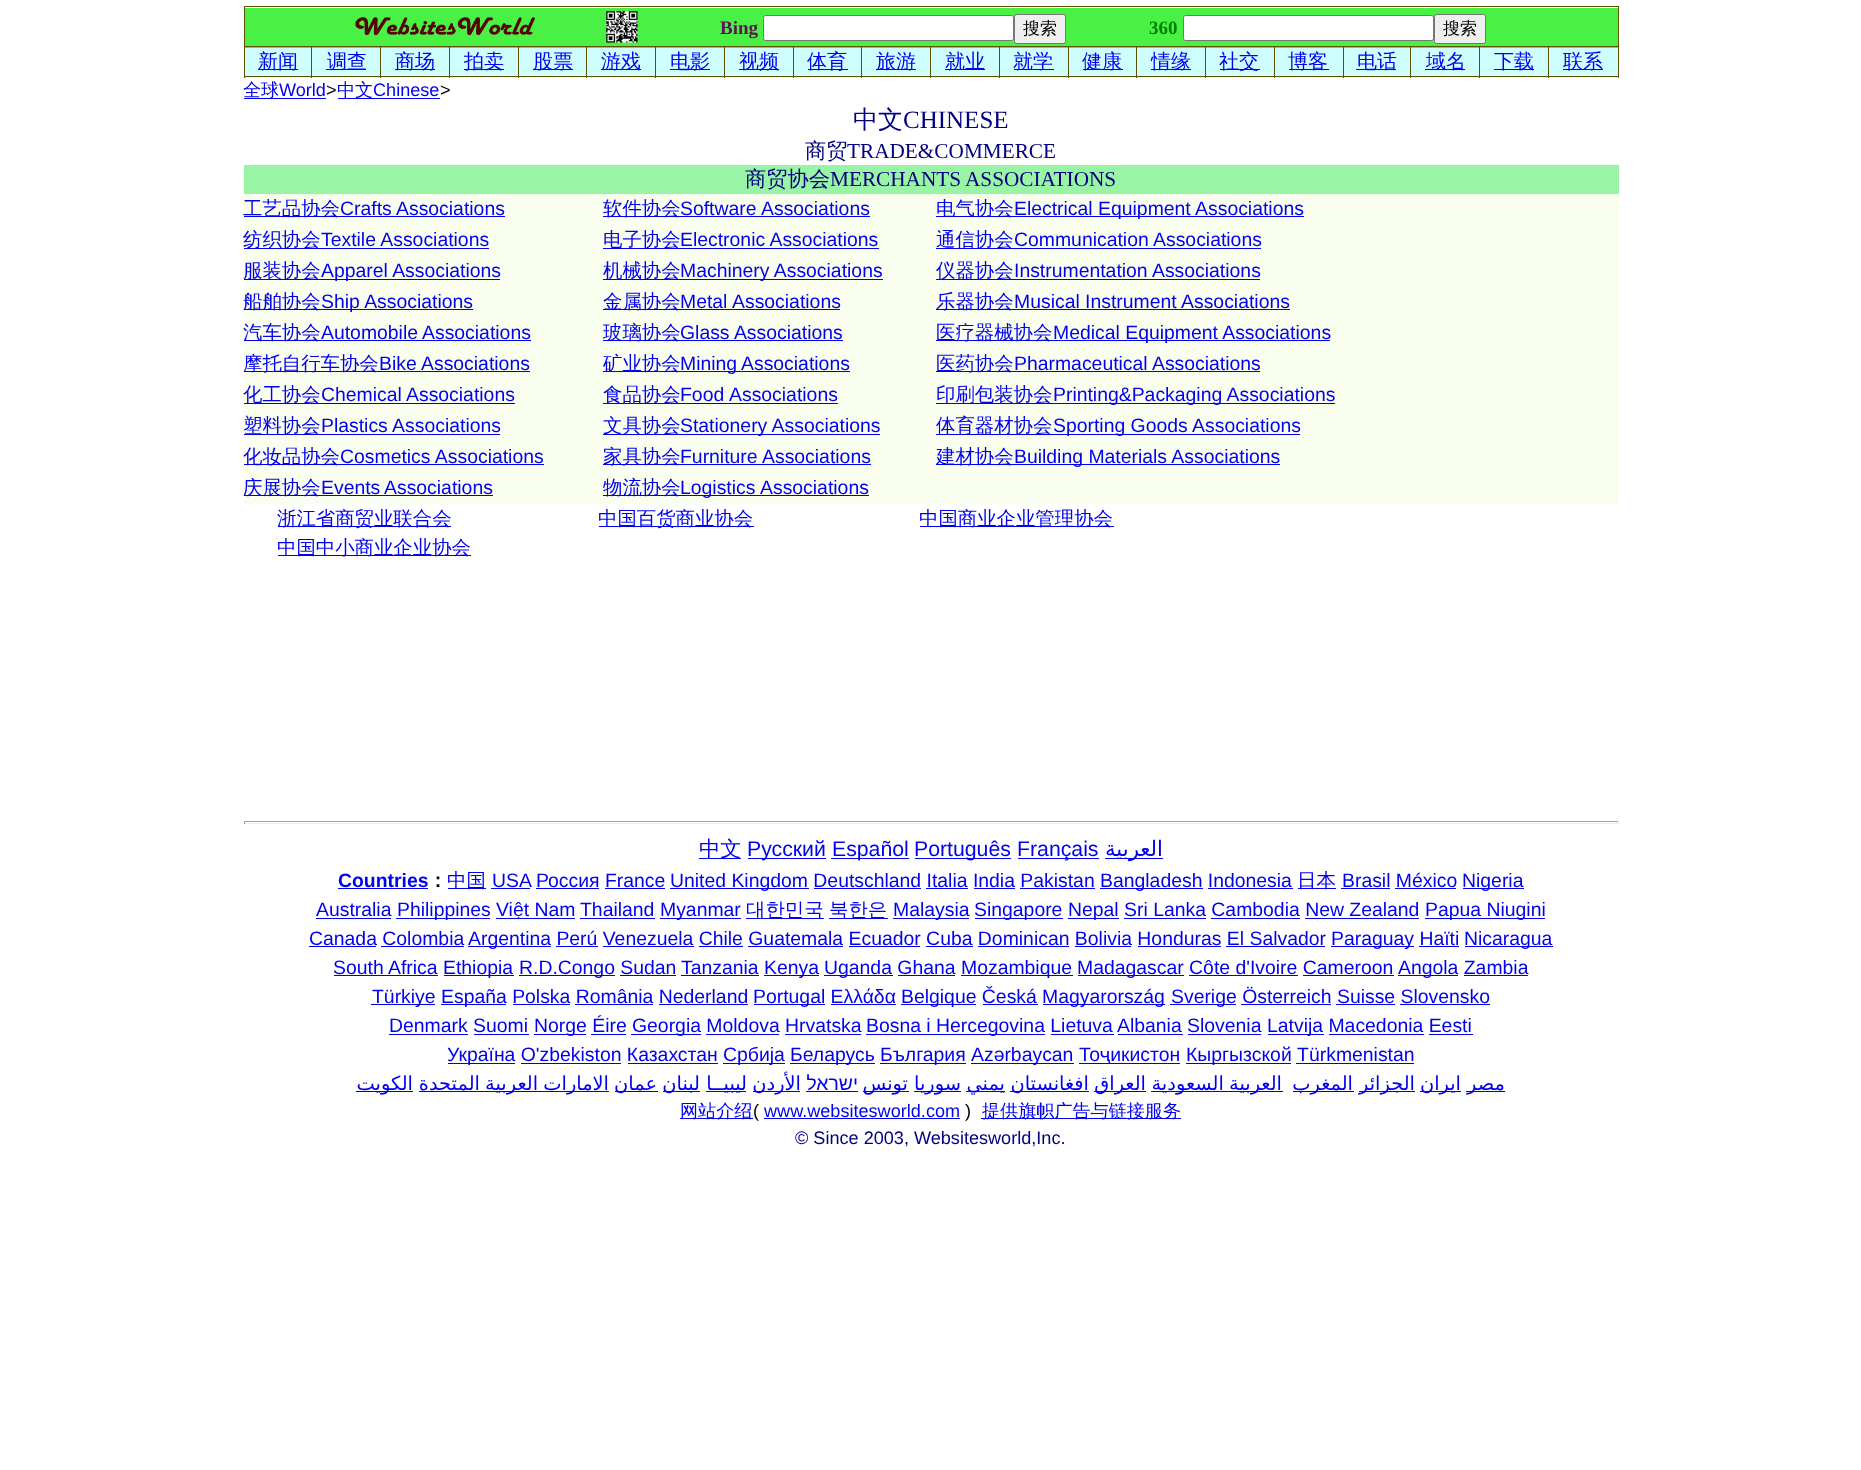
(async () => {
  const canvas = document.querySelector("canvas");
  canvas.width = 1861;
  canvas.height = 1470;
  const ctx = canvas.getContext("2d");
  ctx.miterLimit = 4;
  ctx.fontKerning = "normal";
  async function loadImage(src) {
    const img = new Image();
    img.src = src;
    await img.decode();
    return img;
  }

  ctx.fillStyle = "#ffffff";
  ctx.fillRect(0, 0, 1861, 1470);
  for (const [x, y, w, h, color] of [
    [244, 6, 1375, 1, "#615103"],
    [1618, 6, 1, 72, "#615103"],
    [245, 48, 135, 30, "#cffefe"],
    [381, 48, 68, 30, "#cffefe"],
    [450, 48, 68, 30, "#cffefe"],
    [519, 48, 136, 30, "#cffefe"],
    [656, 48, 68, 30, "#cffefe"],
    [725, 48, 68, 30, "#cffefe"],
    [794, 48, 67, 30, "#cffefe"],
    [862, 48, 68, 30, "#cffefe"],
    [931, 48, 68, 30, "#cffefe"],
    [1000, 48, 68, 30, "#cffefe"],
    [1069, 48, 67, 30, "#cffefe"],
    [1137, 48, 68, 30, "#cffefe"],
    [1206, 48, 68, 30, "#cffefe"],
    [1275, 48, 68, 30, "#cffefe"],
    [1344, 48, 66, 30, "#cffefe"],
    [1411, 48, 68, 30, "#cffefe"],
    [1480, 48, 68, 30, "#cffefe"],
    [1549, 48, 69, 30, "#cffefe"],
    [244, 76, 1375, 1, "#615103"],
    [244, 6, 1, 72, "#615103"],
    [245, 8, 1373, 40, "#49f145"],
  ]) {
    ctx.fillStyle = color;
    ctx.fillRect(x, y, w, h);
  }
  ctx.drawImage(await loadImage("img/1.png"), 355, 17, 180, 19);
  ctx.drawImage(await loadImage("img/2.png"), 606, 11, 32, 32);
  ctx.fillStyle = "#ffffff";
  ctx.beginPath();
  ctx.roundRect(763.5, 15.5, 250, 25, 2);
  ctx.fill();
  ctx.strokeStyle = "#767676";
  ctx.stroke();
  ctx.fillStyle = "#efefef";
  ctx.beginPath();
  ctx.roundRect(1014.5, 14.5, 51, 29, 2);
  ctx.fill();
  ctx.stroke();
  ctx.fillStyle = "#ffffff";
  ctx.beginPath();
  ctx.roundRect(1183.5, 15.5, 250, 25, 2);
  ctx.fill();
  ctx.stroke();
  ctx.fillStyle = "#efefef";
  ctx.beginPath();
  ctx.roundRect(1434.5, 14.5, 51, 29, 2);
  ctx.fill();
  ctx.stroke();
  for (const [x, y, w, h, color] of [
    [1548, 46, 71, 1, "#615103"],
    [1548, 46, 1, 32, "#615103"],
    [1479, 46, 70, 1, "#615103"],
    [1479, 46, 1, 32, "#615103"],
    [1410, 46, 70, 1, "#615103"],
    [1410, 46, 1, 32, "#615103"],
    [1343, 46, 68, 1, "#615103"],
    [1343, 46, 1, 32, "#615103"],
    [1274, 46, 70, 1, "#615103"],
    [1274, 46, 1, 32, "#615103"],
    [1205, 46, 70, 1, "#615103"],
    [1205, 46, 1, 32, "#615103"],
    [1136, 46, 70, 1, "#615103"],
    [1136, 46, 1, 32, "#615103"],
    [1068, 46, 70, 1, "#615103"],
    [1068, 46, 1, 32, "#615103"],
    [999, 46, 70, 1, "#615103"],
    [999, 46, 1, 32, "#615103"],
    [930, 46, 70, 1, "#615103"],
    [930, 46, 1, 32, "#615103"],
    [861, 46, 70, 1, "#615103"],
    [861, 46, 1, 32, "#615103"],
    [793, 46, 70, 1, "#615103"],
    [793, 46, 1, 32, "#615103"],
    [724, 46, 70, 1, "#615103"],
    [724, 46, 1, 32, "#615103"],
    [655, 46, 70, 1, "#615103"],
    [655, 46, 1, 32, "#615103"],
    [586, 46, 70, 1, "#615103"],
    [586, 46, 1, 32, "#615103"],
    [518, 46, 70, 1, "#615103"],
    [518, 46, 1, 32, "#615103"],
    [449, 46, 70, 1, "#615103"],
    [449, 46, 1, 32, "#615103"],
    [380, 46, 70, 1, "#615103"],
    [380, 46, 1, 32, "#615103"],
    [311, 46, 70, 1, "#615103"],
    [311, 46, 1, 32, "#615103"],
    [244, 46, 69, 1, "#615103"],
    [258, 69, 40, 1, "#0000ee"],
    [326, 69, 40, 1, "#0000ee"],
    [395, 69, 40, 1, "#0000ee"],
    [464, 69, 40, 1, "#0000ee"],
    [533, 69, 40, 1, "#0000ee"],
    [601, 69, 40, 1, "#0000ee"],
    [670, 69, 40, 1, "#0000ee"],
    [739, 69, 40, 1, "#0000ee"],
    [808, 69, 40, 1, "#0000ee"],
    [876, 69, 40, 1, "#0000ee"],
    [945, 69, 40, 1, "#0000ee"],
    [1014, 69, 40, 1, "#0000ee"],
    [1083, 69, 40, 1, "#0000ee"],
    [1151, 69, 40, 1, "#0000ee"],
    [1220, 69, 40, 1, "#0000ee"],
    [1289, 69, 40, 1, "#0000ee"],
    [1356, 69, 40, 1, "#0000ee"],
    [1425, 69, 40, 1, "#0000ee"],
    [1494, 69, 40, 1, "#0000ee"],
    [1563, 69, 40, 1, "#0000ee"],
    [244, 98, 82, 1, "#0000ee"],
    [338, 98, 102, 1, "#0000ee"],
    [244, 165, 1375, 29, "#99f4a5"],
    [244, 194, 1375, 310, "#fafeef"],
    [244, 216, 261, 1, "#0000ee"],
    [244, 248, 245, 1, "#0000ee"],
    [244, 279, 256, 1, "#0000ee"],
    [244, 309, 229, 1, "#0000ee"],
    [244, 340, 287, 1, "#0000ee"],
    [244, 371, 286, 1, "#0000ee"],
    [244, 403, 271, 1, "#0000ee"],
    [244, 434, 256, 1, "#0000ee"],
    [244, 464, 300, 1, "#0000ee"],
    [244, 495, 249, 1, "#0000ee"],
    [603, 216, 267, 1, "#0000ee"],
    [603, 248, 276, 1, "#0000ee"],
    [603, 279, 280, 1, "#0000ee"],
    [603, 309, 237, 1, "#0000ee"],
    [603, 340, 240, 1, "#0000ee"],
    [603, 371, 247, 1, "#0000ee"],
    [603, 403, 235, 1, "#0000ee"],
    [603, 434, 277, 1, "#0000ee"],
    [603, 464, 268, 1, "#0000ee"],
    [603, 495, 266, 1, "#0000ee"],
    [936, 216, 368, 1, "#0000ee"],
    [936, 248, 325, 1, "#0000ee"],
    [936, 279, 324, 1, "#0000ee"],
    [936, 309, 354, 1, "#0000ee"],
    [936, 340, 394, 1, "#0000ee"],
    [936, 371, 324, 1, "#0000ee"],
    [936, 403, 399, 1, "#0000ee"],
    [936, 434, 364, 1, "#0000ee"],
    [936, 464, 344, 1, "#0000ee"],
    [278, 526, 173, 1, "#0000ee"],
    [599, 526, 155, 1, "#0000ee"],
    [920, 526, 194, 1, "#0000ee"],
    [278, 555, 193, 1, "#0000ee"],
    [244, 821, 1375, 1, "#9f9f9f"],
    [1618, 821, 1, 3, "#eeeeee"],
    [244, 823, 1375, 1, "#eeeeee"],
    [244, 821, 1, 3, "#9f9f9f"],
    [699, 858, 42, 1, "#0000ee"],
    [748, 858, 78, 1, "#0000ee"],
    [831, 858, 78, 1, "#0000ee"],
    [915, 858, 96, 1, "#0000ee"],
    [1018, 858, 81, 1, "#0000ee"],
    [1105, 858, 58, 1, "#0000ee"],
    [338, 888, 90, 1, "#0000ee"],
    [448, 888, 38, 1, "#0000ee"],
    [491, 888, 39, 1, "#0000ee"],
    [536, 888, 63, 1, "#0000ee"],
    [670, 888, 139, 1, "#0000ee"],
    [1100, 888, 103, 1, "#0000ee"],
    [1298, 888, 38, 1, "#0000ee"],
    [1341, 888, 49, 1, "#0000ee"],
    [1463, 888, 61, 1, "#0000ee"],
    [605, 888, 60, 1, "#0000ee"],
    [814, 888, 107, 1, "#0000ee"],
    [926, 888, 42, 1, "#0000ee"],
    [974, 888, 41, 1, "#0000ee"],
    [1020, 888, 75, 1, "#0000ee"],
    [1208, 888, 85, 1, "#0000ee"],
    [1395, 888, 61, 1, "#0000ee"],
    [316, 918, 75, 1, "#0000ee"],
    [396, 918, 94, 1, "#0000ee"],
    [496, 918, 79, 1, "#0000ee"],
    [580, 918, 75, 1, "#0000ee"],
    [660, 918, 81, 1, "#0000ee"],
    [746, 918, 78, 1, "#0000ee"],
    [829, 918, 59, 1, "#0000ee"],
    [893, 918, 76, 1, "#0000ee"],
    [975, 918, 88, 1, "#0000ee"],
    [1068, 918, 51, 1, "#0000ee"],
    [1425, 918, 120, 1, "#0000ee"],
    [1124, 918, 82, 1, "#0000ee"],
    [1211, 918, 89, 1, "#0000ee"],
    [1305, 918, 114, 1, "#0000ee"],
    [309, 946, 67, 1, "#0000ee"],
    [468, 946, 83, 1, "#0000ee"],
    [1331, 946, 83, 1, "#0000ee"],
    [1465, 946, 88, 1, "#0000ee"],
    [381, 946, 83, 1, "#0000ee"],
    [556, 946, 42, 1, "#0000ee"],
    [603, 946, 91, 1, "#0000ee"],
    [699, 946, 44, 1, "#0000ee"],
    [748, 946, 95, 1, "#0000ee"],
    [849, 946, 71, 1, "#0000ee"],
    [926, 946, 47, 1, "#0000ee"],
    [978, 946, 91, 1, "#0000ee"],
    [1075, 946, 56, 1, "#0000ee"],
    [1138, 946, 83, 1, "#0000ee"],
    [1226, 946, 99, 1, "#0000ee"],
    [1419, 946, 40, 1, "#0000ee"],
    [334, 975, 104, 1, "#0000ee"],
    [444, 975, 70, 1, "#0000ee"],
    [519, 975, 96, 1, "#0000ee"],
    [681, 975, 78, 1, "#0000ee"],
    [764, 975, 55, 1, "#0000ee"],
    [824, 975, 69, 1, "#0000ee"],
    [961, 975, 112, 1, "#0000ee"],
    [1078, 975, 106, 1, "#0000ee"],
    [1398, 975, 60, 1, "#0000ee"],
    [620, 975, 56, 1, "#0000ee"],
    [898, 975, 57, 1, "#0000ee"],
    [1189, 975, 109, 1, "#0000ee"],
    [1303, 975, 91, 1, "#0000ee"],
    [1464, 975, 64, 1, "#0000ee"],
    [371, 1004, 64, 1, "#0000ee"],
    [441, 1004, 65, 1, "#0000ee"],
    [754, 1004, 71, 1, "#0000ee"],
    [901, 1004, 75, 1, "#0000ee"],
    [1043, 1004, 122, 1, "#0000ee"],
    [1170, 1004, 66, 1, "#0000ee"],
    [513, 1004, 57, 1, "#0000ee"],
    [575, 1004, 78, 1, "#0000ee"],
    [659, 1004, 89, 1, "#0000ee"],
    [831, 1004, 65, 1, "#0000ee"],
    [983, 1004, 55, 1, "#0000ee"],
    [1241, 1004, 90, 1, "#0000ee"],
    [1336, 1004, 59, 1, "#0000ee"],
    [1400, 1004, 90, 1, "#0000ee"],
    [389, 1034, 79, 1, "#0000ee"],
    [534, 1034, 52, 1, "#0000ee"],
    [631, 1034, 70, 1, "#0000ee"],
    [866, 1034, 179, 1, "#0000ee"],
    [1118, 1034, 65, 1, "#0000ee"],
    [1268, 1034, 56, 1, "#0000ee"],
    [474, 1034, 55, 1, "#0000ee"],
    [591, 1034, 35, 1, "#0000ee"],
    [706, 1034, 73, 1, "#0000ee"],
    [785, 1034, 76, 1, "#0000ee"],
    [1051, 1034, 63, 1, "#0000ee"],
    [1188, 1034, 73, 1, "#0000ee"],
    [1329, 1034, 95, 1, "#0000ee"],
    [1429, 1034, 44, 1, "#0000ee"],
    [448, 1063, 67, 1, "#0000ee"],
    [723, 1063, 62, 1, "#0000ee"],
    [790, 1063, 85, 1, "#0000ee"],
    [880, 1063, 86, 1, "#0000ee"],
    [971, 1063, 103, 1, "#0000ee"],
    [1079, 1063, 101, 1, "#0000ee"],
    [1186, 1063, 105, 1, "#0000ee"],
    [521, 1063, 100, 1, "#0000ee"],
    [628, 1063, 90, 1, "#0000ee"],
    [1296, 1063, 118, 1, "#0000ee"],
    [356, 1091, 57, 1, "#0000ee"],
    [419, 1091, 190, 1, "#0000ee"],
    [615, 1091, 43, 1, "#0000ee"],
    [663, 1091, 37, 1, "#0000ee"],
    [706, 1091, 40, 1, "#0000ee"],
    [753, 1091, 47, 1, "#0000ee"],
    [806, 1091, 52, 1, "#0000ee"],
    [863, 1091, 46, 1, "#0000ee"],
    [914, 1091, 47, 1, "#0000ee"],
    [966, 1091, 39, 1, "#0000ee"],
    [1010, 1091, 79, 1, "#0000ee"],
    [1094, 1091, 52, 1, "#0000ee"],
    [1151, 1091, 132, 1, "#0000ee"],
    [1293, 1091, 61, 1, "#0000ee"],
    [1359, 1091, 56, 1, "#0000ee"],
    [1420, 1091, 41, 1, "#0000ee"],
    [1466, 1091, 39, 1, "#0000ee"],
    [680, 1118, 73, 1, "#0000ee"],
    [764, 1118, 196, 1, "#0000ee"],
    [981, 1118, 200, 1, "#0000ee"],
  ]) {
    ctx.fillStyle = color;
    ctx.fillRect(x, y, w, h);
  }
  ctx.font = "bold 19px Liberation Serif";
  ctx.fillStyle = "#601354";
  ctx.fillText("Bing", 720, 34);
  ctx.font = "500 17px WenQuanYi Zen Hei";
  ctx.fillStyle = "#000000";
  ctx.fillText("搜索", 1023, 34);
  ctx.font = "bold 19px Liberation Serif";
  ctx.fillStyle = "#008000";
  ctx.fillText("360", 1149, 34);
  ctx.font = "500 17px WenQuanYi Zen Hei";
  ctx.fillStyle = "#000000";
  ctx.fillText("搜索", 1443, 34);
  ctx.font = "500 20px WenQuanYi Zen Hei";
  ctx.fillStyle = "#0000ee";
  for (const [text, x, y] of [
    ["新闻", 258, 68],
    ["调查", 327, 68],
    ["商场", 395, 68],
    ["拍卖", 464, 68],
    ["股票", 533, 68],
    ["游戏", 601, 68],
    ["电影", 670, 68],
    ["视频", 739, 68],
    ["体育", 807, 68],
    ["旅游", 876, 68],
    ["就业", 945, 68],
    ["就学", 1013, 68],
    ["健康", 1082, 68],
    ["情缘", 1151, 68],
    ["社交", 1219, 68],
    ["博客", 1288, 68],
    ["电话", 1357, 68],
    ["域名", 1426, 68],
    ["下载", 1494, 68],
    ["联系", 1563, 68],
  ]) {
    ctx.fillText(text, x, y);
  }
  ctx.font = "500 18.1px WenQuanYi Zen Hei";
  ctx.fillText("全球", 243, 96);
  ctx.font = "18.1px Liberation Sans";
  ctx.fillText("World", 279, 96);
  ctx.fillStyle = "#000000";
  ctx.fillText(">", 326, 96);
  ctx.font = "500 18.1px WenQuanYi Zen Hei";
  ctx.fillStyle = "#0000ee";
  ctx.fillText("中文", 337, 96);
  ctx.font = "18.1px Liberation Sans";
  ctx.fillText("Chinese", 373, 96);
  ctx.fillStyle = "#000000";
  ctx.fillText(">", 440, 96);
  ctx.font = "500 25px WenQuanYi Zen Hei";
  ctx.fillStyle = "#000080";
  ctx.fillText("中文", 853, 128);
  ctx.font = "25px Liberation Serif";
  ctx.fillText("CHINESE", 903, 128);
  ctx.font = "500 21.25px WenQuanYi Zen Hei";
  ctx.fillText("商贸", 805, 158);
  ctx.font = "21.25px Liberation Serif";
  ctx.fillText("TRADE&COMMERCE", 847, 158);
  ctx.font = "500 21.25px WenQuanYi Zen Hei";
  ctx.fillText("商贸协会", 745, 186);
  ctx.font = "21.25px Liberation Serif";
  ctx.fillText("MERCHANTS", 830, 186);
  ctx.fillText("ASSOCIATIONS", 965, 186);
  ctx.font = "500 19.4px WenQuanYi Zen Hei";
  ctx.fillStyle = "#0000ee";
  ctx.fillText("工艺品协会", 243, 215);
  ctx.font = "19.4px Liberation Sans";
  ctx.fillText("Crafts", 340, 215);
  ctx.fillText("Associations", 396, 215);
  ctx.font = "500 19.4px WenQuanYi Zen Hei";
  ctx.fillText("纺织协会", 243, 246);
  ctx.font = "19.4px Liberation Sans";
  ctx.fillText("Textile Associations", 321, 246);
  ctx.font = "500 19.4px WenQuanYi Zen Hei";
  ctx.fillText("服装协会", 243, 277);
  ctx.font = "19.4px Liberation Sans";
  ctx.fillText("Apparel Associations", 321, 277);
  ctx.font = "500 19.4px WenQuanYi Zen Hei";
  ctx.fillText("船舶协会", 243, 308);
  ctx.font = "19.4px Liberation Sans";
  ctx.fillText("Ship Associations", 321, 308);
  ctx.font = "500 19.4px WenQuanYi Zen Hei";
  ctx.fillText("汽车协会", 243, 339);
  ctx.font = "19.4px Liberation Sans";
  ctx.fillText("Automobile", 321, 339);
  ctx.fillText("Associations", 422, 339);
  ctx.font = "500 19.4px WenQuanYi Zen Hei";
  ctx.fillText("摩托自行车协会", 243, 370);
  ctx.font = "19.4px Liberation Sans";
  ctx.fillText("Bike", 379, 370);
  ctx.fillText("Associations", 421, 370);
  ctx.font = "500 19.4px WenQuanYi Zen Hei";
  ctx.fillText("化工协会", 243, 401);
  ctx.font = "19.4px Liberation Sans";
  ctx.fillText("Chemical", 321, 401);
  ctx.fillText("Associations", 406, 401);
  ctx.font = "500 19.4px WenQuanYi Zen Hei";
  ctx.fillText("塑料协会", 243, 432);
  ctx.font = "19.4px Liberation Sans";
  ctx.fillText("Plastics Associations", 321, 432);
  ctx.font = "500 19.4px WenQuanYi Zen Hei";
  ctx.fillText("化妆品协会", 243, 463);
  ctx.font = "19.4px Liberation Sans";
  ctx.fillText("Cosmetics Associations", 340, 463);
  ctx.font = "500 19.4px WenQuanYi Zen Hei";
  ctx.fillText("庆展协会", 243, 494);
  ctx.font = "19.4px Liberation Sans";
  ctx.fillText("Events", 321, 494);
  ctx.fillText("Associations", 384, 494);
  ctx.font = "500 19.4px WenQuanYi Zen Hei";
  ctx.fillText("软件协会", 603, 215);
  ctx.font = "19.4px Liberation Sans";
  ctx.fillText("Software", 680, 215);
  ctx.fillText("Associations", 761, 215);
  ctx.font = "500 19.4px WenQuanYi Zen Hei";
  ctx.fillText("电子协会", 603, 246);
  ctx.font = "19.4px Liberation Sans";
  ctx.fillText("Electronic Associations", 680, 246);
  ctx.font = "500 19.4px WenQuanYi Zen Hei";
  ctx.fillText("机械协会", 603, 277);
  ctx.font = "19.4px Liberation Sans";
  ctx.fillText("Machinery Associations", 680, 277);
  ctx.font = "500 19.4px WenQuanYi Zen Hei";
  ctx.fillText("金属协会", 603, 308);
  ctx.font = "19.4px Liberation Sans";
  ctx.fillText("Metal", 680, 308);
  ctx.fillText("Associations", 732, 308);
  ctx.font = "500 19.4px WenQuanYi Zen Hei";
  ctx.fillText("玻璃协会", 603, 339);
  ctx.font = "19.4px Liberation Sans";
  ctx.fillText("Glass Associations", 680, 339);
  ctx.font = "500 19.4px WenQuanYi Zen Hei";
  ctx.fillText("矿业协会", 603, 370);
  ctx.font = "19.4px Liberation Sans";
  ctx.fillText("Mining", 680, 370);
  ctx.fillText("Associations", 741, 370);
  ctx.font = "500 19.4px WenQuanYi Zen Hei";
  ctx.fillText("食品协会", 603, 401);
  ctx.font = "19.4px Liberation Sans";
  ctx.fillText("Food", 680, 401);
  ctx.fillText("Associations", 729, 401);
  ctx.font = "500 19.4px WenQuanYi Zen Hei";
  ctx.fillText("文具协会", 603, 432);
  ctx.font = "19.4px Liberation Sans";
  ctx.fillText("Stationery Associations", 680, 432);
  ctx.font = "500 19.4px WenQuanYi Zen Hei";
  ctx.fillText("家具协会", 603, 463);
  ctx.font = "19.4px Liberation Sans";
  ctx.fillText("Furniture", 680, 463);
  ctx.fillText("Associations", 762, 463);
  ctx.font = "500 19.4px WenQuanYi Zen Hei";
  ctx.fillText("物流协会", 603, 494);
  ctx.font = "19.4px Liberation Sans";
  ctx.fillText("Logistics", 680, 494);
  ctx.fillText("Associations", 760, 494);
  ctx.font = "500 19.4px WenQuanYi Zen Hei";
  ctx.fillText("电气协会", 936, 215);
  ctx.font = "19.4px Liberation Sans";
  ctx.fillText("Electrical Equipment Associations", 1014, 215);
  ctx.font = "500 19.4px WenQuanYi Zen Hei";
  ctx.fillText("通信协会", 936, 246);
  ctx.font = "19.4px Liberation Sans";
  ctx.fillText("Communication Associations", 1014, 246);
  ctx.font = "500 19.4px WenQuanYi Zen Hei";
  ctx.fillText("仪器协会", 936, 277);
  ctx.font = "19.4px Liberation Sans";
  ctx.fillText("Instrumentation Associations", 1014, 277);
  ctx.font = "500 19.4px WenQuanYi Zen Hei";
  ctx.fillText("乐器协会", 936, 308);
  ctx.font = "19.4px Liberation Sans";
  ctx.fillText("Musical Instrument Associations", 1014, 308);
  ctx.font = "500 19.4px WenQuanYi Zen Hei";
  ctx.fillText("医疗器械协会", 936, 339);
  ctx.font = "19.4px Liberation Sans";
  ctx.fillText("Medical Equipment Associations", 1053, 339);
  ctx.font = "500 19.4px WenQuanYi Zen Hei";
  ctx.fillText("医药协会", 936, 370);
  ctx.font = "19.4px Liberation Sans";
  ctx.fillText("Pharmaceutical Associations", 1014, 370);
  ctx.font = "500 19.4px WenQuanYi Zen Hei";
  ctx.fillText("印刷包装协会", 936, 401);
  ctx.font = "19.4px Liberation Sans";
  ctx.fillText("Printing&Packaging Associations", 1053, 401);
  ctx.font = "500 19.4px WenQuanYi Zen Hei";
  ctx.fillText("体育器材协会", 936, 432);
  ctx.font = "19.4px Liberation Sans";
  ctx.fillText("Sporting Goods Associations", 1053, 432);
  ctx.font = "500 19.4px WenQuanYi Zen Hei";
  ctx.fillText("建材协会", 936, 463);
  ctx.font = "19.4px Liberation Sans";
  ctx.fillText("Building Materials Associations", 1014, 463);
  ctx.font = "500 19.4px WenQuanYi Zen Hei";
  for (const [text, x, y] of [
    ["浙江省商贸业联合会", 277, 525],
    ["中国百货商业协会", 598, 525],
    ["中国商业企业管理协会", 919, 525],
    ["中国中小商业企业协会", 277, 554],
  ]) {
    ctx.fillText(text, x, y);
  }
  ctx.font = "500 21.25px WenQuanYi Zen Hei";
  ctx.fillText("中文", 699, 856);
  ctx.font = "21.25px Liberation Sans";
  for (const [text, x, y] of [
    ["Русский", 747, 856],
    ["Español", 832, 856],
    ["Português", 914, 856],
    ["Français", 1017, 856],
  ]) {
    ctx.fillText(text, x, y);
  }
  ctx.direction = "rtl";
  ctx.font = "21.25px DejaVu Sans";
  ctx.fillText("العربية", 1163, 856);
  ctx.direction = "ltr";
  ctx.font = "bold 19.4px Liberation Sans";
  ctx.fillText("Countries", 338, 887);
  ctx.font = "bold 19.4px WenQuanYi Zen Hei";
  ctx.fillStyle = "#000000";
  ctx.fillText("：", 428, 887);
  ctx.font = "500 19.4px WenQuanYi Zen Hei";
  ctx.fillStyle = "#0000ee";
  ctx.fillText("中国", 447, 887);
  ctx.font = "19.4px Liberation Sans";
  for (const [text, x, y] of [
    ["USA", 492, 887],
    ["Россия France", 536, 887],
    ["United Kingdom Deutschland Italia India Pakistan", 670, 887],
    ["Bangladesh Indonesia", 1100, 887],
  ]) {
    ctx.fillText(text, x, y);
  }
  ctx.font = "500 19.4px WenQuanYi Zen Hei";
  ctx.fillText("日本", 1297, 887);
  ctx.font = "19.4px Liberation Sans";
  for (const [text, x, y] of [
    ["Brasil México", 1342, 887],
    ["Nigeria", 1462, 887],
    ["Australia", 316, 916],
    ["Philippines", 397, 916],
    ["Việt Nam", 496, 916],
    ["Thailand", 580, 916],
    ["Myanmar", 660, 916],
  ]) {
    ctx.fillText(text, x, y);
  }
  ctx.font = "500 19.4px WenQuanYi Zen Hei";
  ctx.fillText("대한민국", 746, 916);
  ctx.fillText("북한은", 829, 916);
  ctx.font = "19.4px Liberation Sans";
  for (const [text, x, y] of [
    ["Malaysia", 893, 916],
    ["Singapore", 974, 916],
    ["Nepal Sri Lanka Cambodia New Zealand", 1068, 916],
    ["Papua Niugini", 1425, 916],
    ["Canada Colombia", 309, 945],
    ["Argentina Perú Venezuela Chile Guatemala Ecuador Cuba Dominican Bolivia Honduras El Salvador", 468, 945],
    ["Paraguay Haïti", 1331, 945],
    ["Nicaragua", 1464, 945],
    ["South Africa", 333, 974],
    ["Ethiopia", 443, 974],
    ["R.D.Congo Sudan", 519, 974],
    ["Tanzania", 681, 974],
    ["Kenya", 764, 974],
    ["Uganda Ghana", 824, 974],
    ["Mozambique", 961, 974],
    ["Madagascar Côte d'Ivoire Cameroon", 1077, 974],
    ["Angola Zambia", 1398, 974],
    ["Türkiye", 372, 1003],
    ["España Polska România Nederland", 441, 1003],
    ["Portugal Ελλάδα", 753, 1003],
    ["Belgique Česká", 901, 1003],
    ["Magyarország", 1042, 1003],
    ["Sverige Österreich Suisse Slovensko", 1171, 1003],
    ["Denmark Suomi", 389, 1032],
    ["Norge Éire", 534, 1032],
    ["Georgia Moldova Hrvatska", 632, 1032],
    ["Bosna i Hercegovina Lietuva", 866, 1032],
    ["Albania Slovenia", 1117, 1032],
    ["Latvija Macedonia Eesti", 1267, 1032],
    ["Україна O'zbekiston Казахстан", 447, 1061],
    ["Србија", 723, 1061],
    ["Беларусь", 790, 1061],
    ["България", 880, 1061],
    ["Azərbaycan", 971, 1061],
    ["Тоҷикистон", 1079, 1061],
    ["Кыргызской Türkmenistan", 1186, 1061],
  ]) {
    ctx.fillText(text, x, y);
  }
  ctx.direction = "rtl";
  ctx.font = "19.4px DejaVu Sans";
  ctx.fillText("الكويت", 413, 1090);
  ctx.wordSpacing = "-1px";
  ctx.fillText("الامارات العربية المتحدة", 609, 1090);
  ctx.wordSpacing = "0px";
  for (const [text, x, y] of [
    ["عمان", 657, 1090],
    ["لبنان", 700, 1090],
    ["ليبيــا", 747, 1090],
    ["الأردن", 801, 1090],
  ]) {
    ctx.fillText(text, x, y);
  }
  ctx.font = "19.4px Liberation Sans";
  ctx.fillText("ישראל", 858, 1090);
  ctx.font = "19.4px DejaVu Sans";
  for (const [text, x, y] of [
    ["تونس", 908, 1090],
    ["سوريا", 961, 1090],
    ["يمني", 1005, 1090],
    ["افغانستان", 1089, 1090],
    ["العراق", 1146, 1090],
  ]) {
    ctx.fillText(text, x, y);
  }
  ctx.wordSpacing = "-1px";
  ctx.fillText("العربية السعودية", 1282, 1090);
  ctx.wordSpacing = "0px";
  for (const [text, x, y] of [
    ["المغرب", 1353, 1090],
    ["الجزائر", 1415, 1090],
    ["ایران", 1461, 1090],
    ["مصر", 1505, 1090],
  ]) {
    ctx.fillText(text, x, y);
  }
  ctx.direction = "ltr";
  ctx.font = "500 18.1px WenQuanYi Zen Hei";
  ctx.fillText("网站介绍", 680, 1117);
  ctx.font = "18.1px Liberation Sans";
  ctx.fillStyle = "#000000";
  ctx.fillText("(", 753, 1117);
  ctx.fillStyle = "#0000ee";
  ctx.fillText("www.websitesworld.com", 764, 1117);
  ctx.fillStyle = "#000000";
  ctx.fillText(")", 965, 1117);
  ctx.font = "500 18.1px WenQuanYi Zen Hei";
  ctx.fillStyle = "#0000ee";
  ctx.fillText("提供旗帜广告与链接服务", 982, 1117);
  ctx.font = "18.1px Liberation Sans";
  ctx.fillStyle = "#000080";
  ctx.fillText("© Since 2003, Websitesworld,Inc.", 795, 1144);
})();
